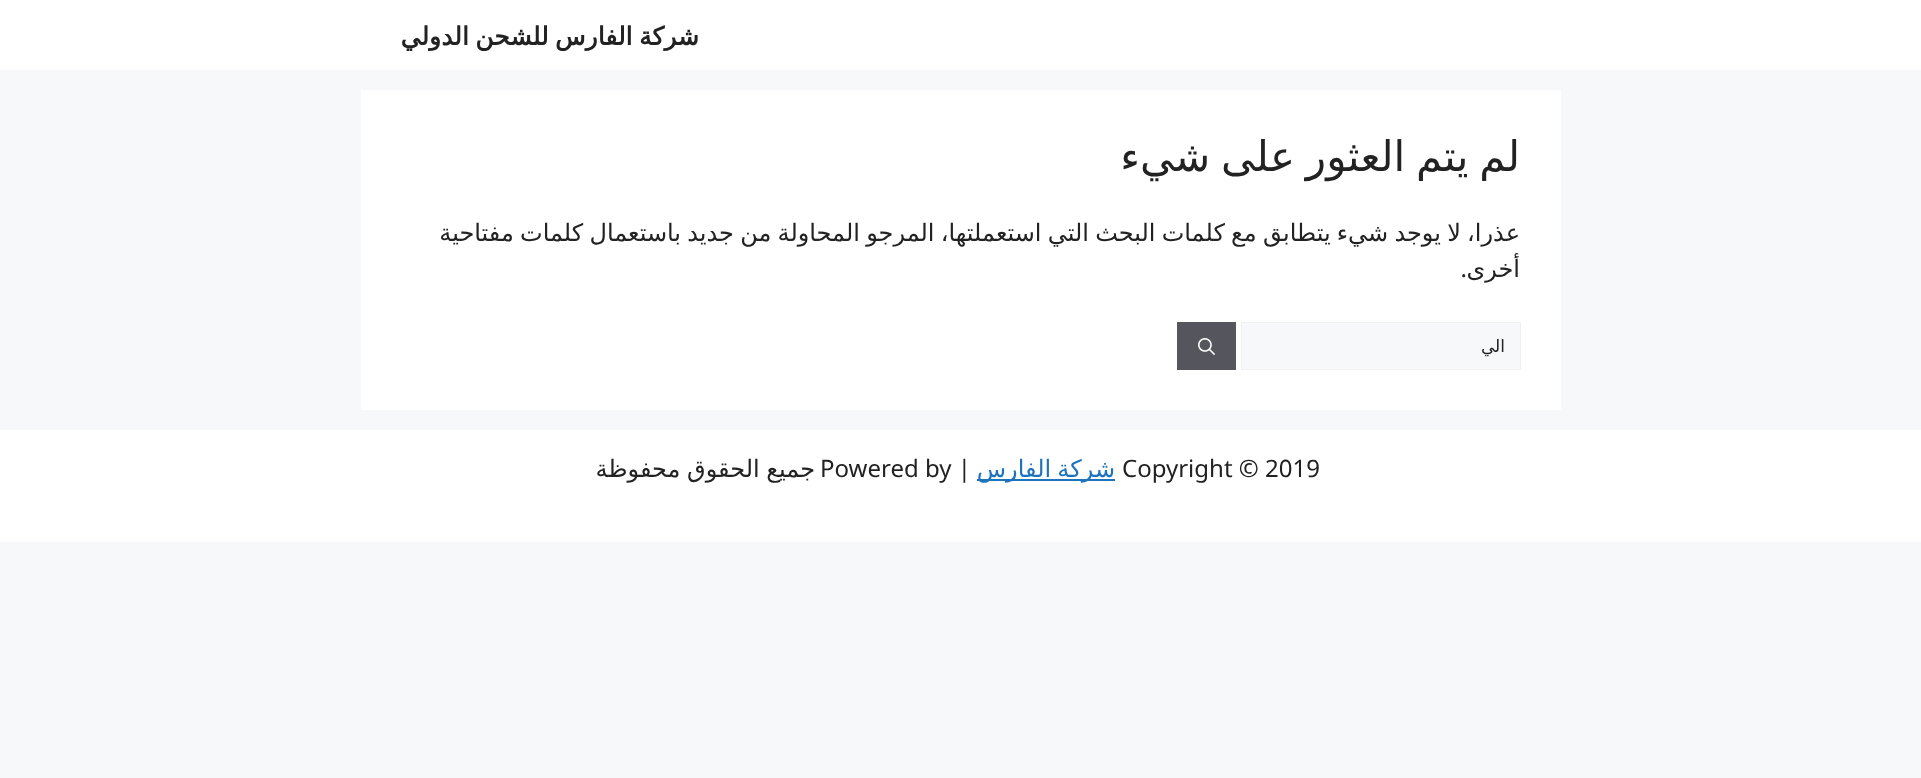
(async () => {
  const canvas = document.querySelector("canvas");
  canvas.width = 1921;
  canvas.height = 778;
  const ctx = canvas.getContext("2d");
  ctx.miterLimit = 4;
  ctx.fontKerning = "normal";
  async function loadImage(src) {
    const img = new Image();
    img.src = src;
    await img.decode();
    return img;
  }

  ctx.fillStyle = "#f7f8f9";
  ctx.fillRect(0, 0, 1921, 778);
  ctx.fillStyle = "#ffffff";
  ctx.fillRect(0, 0, 1921, 70);
  ctx.fillRect(361, 90, 1200, 320);
  ctx.fillStyle = "#f7f8f9";
  ctx.beginPath();
  ctx.rect(1241.5, 322.5, 279, 47);
  ctx.fill();
  ctx.strokeStyle = "#f0f0f0";
  ctx.stroke();
  ctx.fillStyle = "#55555e";
  ctx.fillRect(1177, 322, 59, 48);
  ctx.drawImage(await loadImage("img/1.png"), 1198, 338, 17, 17);
  ctx.fillStyle = "#ffffff";
  ctx.fillRect(0, 430, 1921, 112);
  ctx.fillStyle = "#1e73be";
  ctx.fillRect(977, 479, 138, 2);
  ctx.wordSpacing = "-1.5px";
  ctx.direction = "rtl";
  ctx.font = "bold 25px DejaVu Sans";
  ctx.fillStyle = "#222222";
  ctx.fillText("شركة الفارس للشحن الدولي", 699, 45);
  ctx.wordSpacing = "-2.5px";
  ctx.font = "42px DejaVu Sans";
  ctx.fillText("لم يتم العثور على شيء", 1520, 171);
  ctx.wordSpacing = "-1.4px";
  ctx.font = "24px DejaVu Sans";
  ctx.fillText("عذرا، لا يوجد شيء يتطابق مع كلمات البحث التي استعملتها، المرجو المحاولة من جديد باستعمال كلمات مفتاحية", 1520, 241);
  ctx.wordSpacing = "0px";
  ctx.fillText("أخرى", 1520, 277);
  ctx.font = "24px Noto Sans";
  ctx.fillText(".", 1467, 277);
  ctx.font = "17px DejaVu Sans";
  ctx.fillText("الي", 1505, 352);
  ctx.direction = "ltr";
  ctx.font = "24px Noto Sans";
  ctx.fillText("Copyright © 2019", 1122, 477);
  ctx.wordSpacing = "-1.4px";
  ctx.direction = "rtl";
  ctx.font = "24px DejaVu Sans";
  ctx.fillStyle = "#1e73be";
  ctx.fillText("شركة الفارس", 1115, 477);
  ctx.wordSpacing = "0px";
  ctx.direction = "ltr";
  ctx.font = "24px Noto Sans";
  ctx.fillStyle = "#222222";
  ctx.fillText("Powered by |", 820, 477);
  ctx.wordSpacing = "-1px";
  ctx.direction = "rtl";
  ctx.font = "24px DejaVu Sans";
  ctx.fillText("جميع الحقوق محفوظة", 815, 477);
})();
